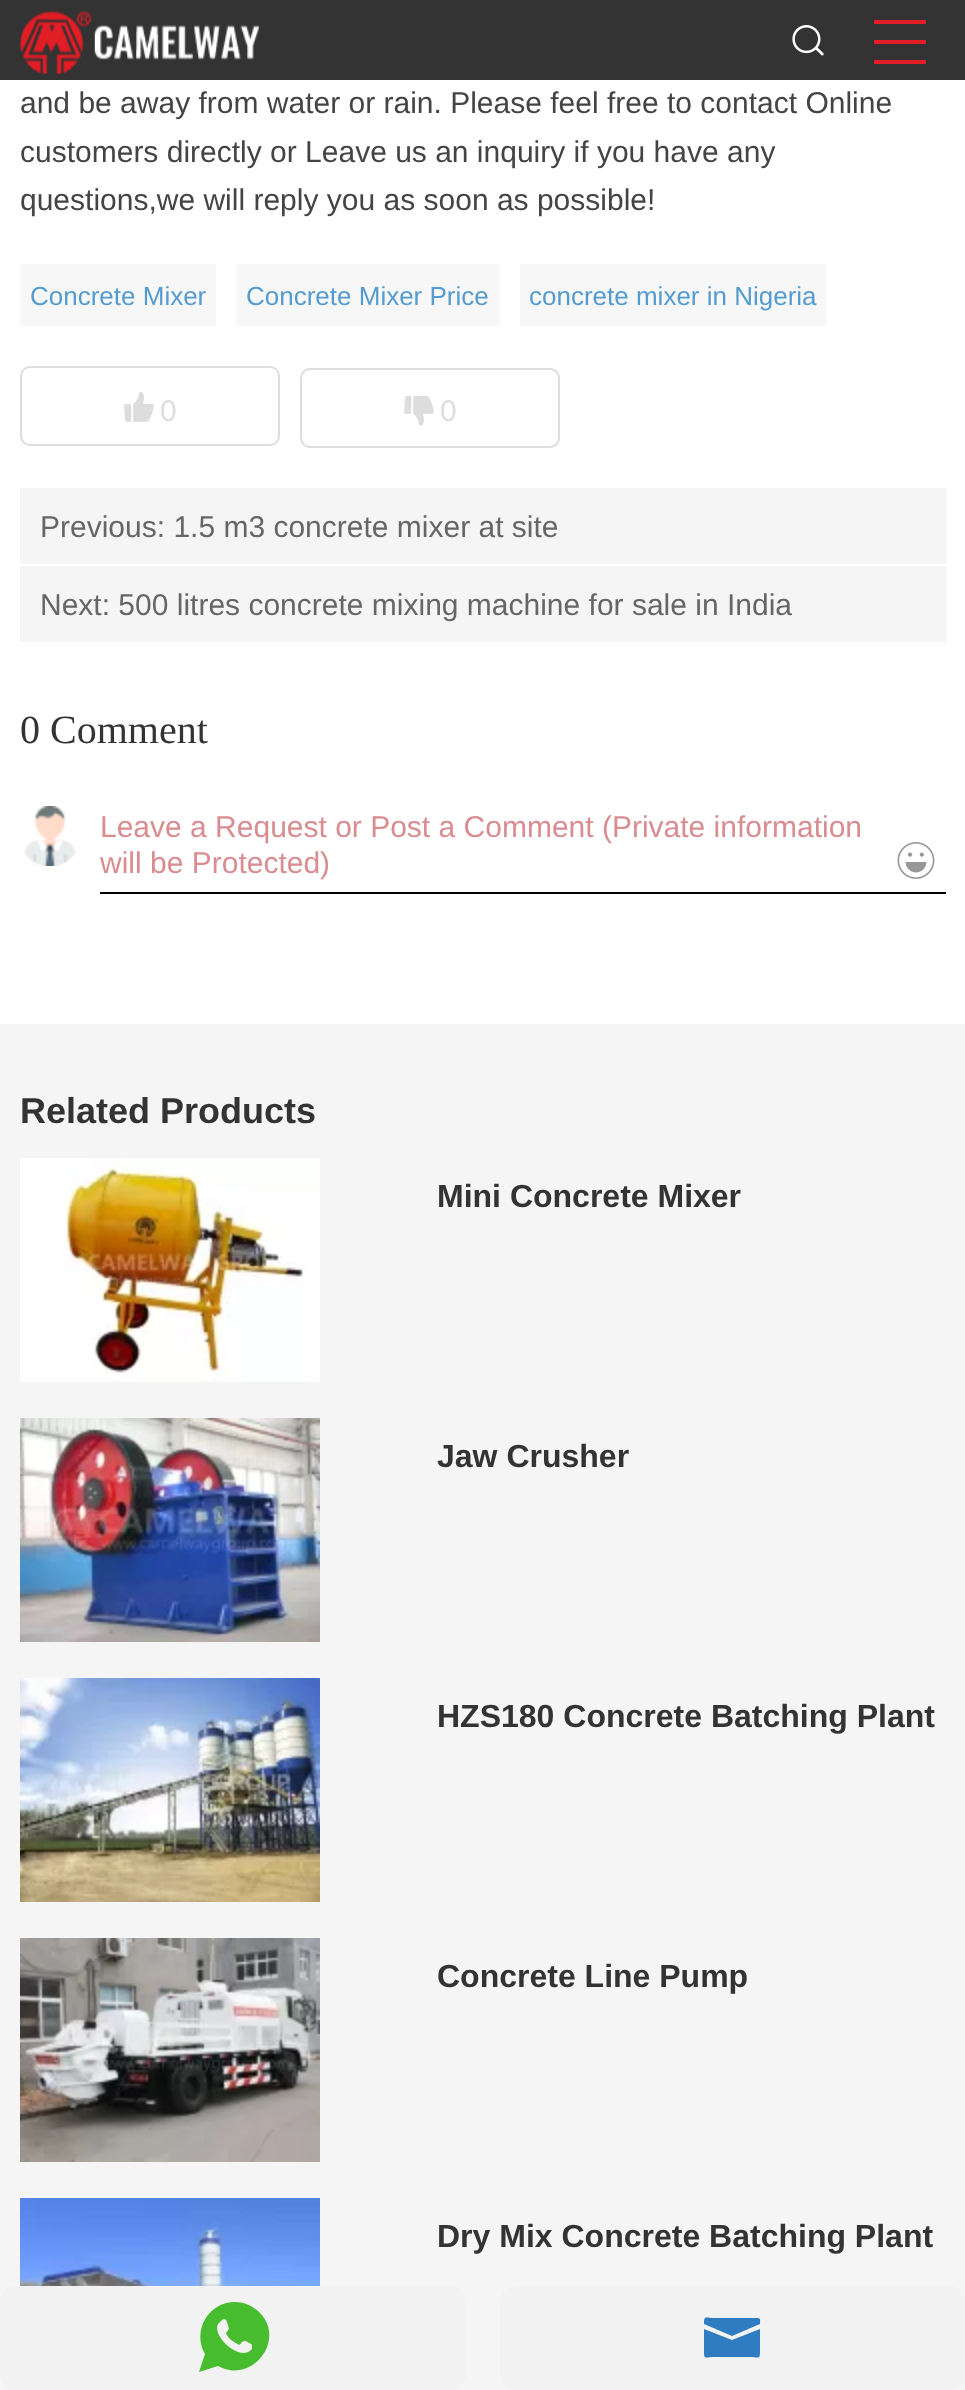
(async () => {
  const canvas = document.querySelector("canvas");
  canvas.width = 965;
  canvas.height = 2390;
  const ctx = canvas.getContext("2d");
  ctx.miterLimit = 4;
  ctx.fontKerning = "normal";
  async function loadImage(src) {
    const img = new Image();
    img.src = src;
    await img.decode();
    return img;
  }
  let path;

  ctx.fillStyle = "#ffffff";
  ctx.fillRect(0, 0, 965, 2390);
  ctx.fillStyle = "#333333";
  ctx.fillRect(0, 0, 965, 80);
  ctx.drawImage(await loadImage("img/1.png"), 20, 11, 240, 63);
  ctx.drawImage(await loadImage("img/2.png"), 792, 25, 32, 31);
  for (const [x, y, w, h, color] of [
    [874, 40, 52, 4, "#e11d26"],
    [874, 20, 52, 4, "#e11d26"],
    [874, 60, 52, 4, "#e11d26"],
    [20, 264, 196, 62, "#f7f7f7"],
    [236, 264, 264, 62, "#f7f7f7"],
    [520, 264, 306, 62, "#f7f7f7"],
  ]) {
    ctx.fillStyle = color;
    ctx.fillRect(x, y, w, h);
  }
  ctx.beginPath();
  ctx.roundRect(21, 367, 258, 78, 9);
  ctx.strokeStyle = "#dddddd";
  ctx.lineWidth = 2;
  ctx.stroke();
  ctx.drawImage(await loadImage("img/3.png"), 124, 392, 30, 30);
  ctx.beginPath();
  ctx.roundRect(301, 369, 258, 78, 9);
  ctx.stroke();
  ctx.drawImage(await loadImage("img/4.png"), 404, 395, 30, 31);
  ctx.fillStyle = "#f6f5f5";
  ctx.fillRect(20, 488, 926, 76);
  ctx.fillRect(20, 566, 926, 76);
  ctx.drawImage(await loadImage("img/5.png"), 23, 806, 54, 60);
  ctx.fillStyle = "#000000";
  ctx.fillRect(100, 892, 846, 2);
  ctx.drawImage(await loadImage("img/6.png"), 897, 842, 38, 37);
  ctx.fillStyle = "#f6f5f5";
  ctx.fillRect(0, 1024, 965, 1366);
  ctx.drawImage(await loadImage("img/7.png"), 20, 1158, 300, 224);
  ctx.drawImage(await loadImage("img/8.png"), 20, 1418, 300, 224);
  ctx.drawImage(await loadImage("img/9.png"), 20, 1678, 300, 224);
  ctx.drawImage(await loadImage("img/10.png"), 20, 1938, 300, 224);
  ctx.drawImage(await loadImage("img/11.png"), 20, 2198, 300, 88);
  ctx.fillStyle = "#f2f2f2";
  ctx.beginPath();
  ctx.roundRect(0, 2286, 466, 104, 16);
  ctx.fill();
  ctx.fillStyle = "#47bc2e";
  path = new Path2D("M235 2302C208 2302 192 2331 205 2354L199 2372L218 2366C253 2385 288 2338 258 2311C251 2305 243 2302 235 2302ZM252 2349C251 2350 250 2351 248 2352C237 2358 212 2336 218 2324L222 2320C226 2317 227 2322 228 2325L229 2329L226 2333C227 2337 233 2342 236 2343C239 2345 239 2346 242 2342L244 2341C244 2340 252 2344 252 2345Z");
  ctx.fill(path);
  ctx.fillStyle = "#f2f2f2";
  ctx.beginPath();
  ctx.roundRect(500, 2286, 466, 104, 16);
  ctx.fill();
  ctx.fillStyle = "#2f7cc3";
  path = new Path2D("M704 2329V2351C704 2360 705 2357 715 2357H749C759 2357 760 2360 760 2351V2329L732 2340ZM758 2318H715C705 2318 704 2315 704 2324L732 2336L760 2324C760 2322 761 2318 758 2318Z");
  ctx.fill(path);
  ctx.font = "30px Liberation Sans";
  ctx.fillStyle = "#444444";
  for (const [text, x, y] of [
    ["and be away from water or rain. Please feel free to contact Online", 20, 113],
    ["customers directly or Leave us an inquiry if you have any", 20, 162],
    ["questions,we will reply you as soon as possible!", 20, 210],
  ]) {
    ctx.fillText(text, x, y);
  }
  ctx.font = "26px Liberation Sans";
  ctx.fillStyle = "#549ccf";
  for (const [text, x, y] of [
    ["Concrete Mixer", 30, 305],
    ["Concrete Mixer Price", 246, 305],
    ["concrete mixer in Nigeria", 529, 305],
  ]) {
    ctx.fillText(text, x, y);
  }
  ctx.font = "30px Liberation Sans";
  ctx.fillStyle = "#dddddd";
  ctx.fillText("0", 160, 421);
  ctx.fillText("0", 440, 421);
  ctx.fillStyle = "#666666";
  ctx.fillText("Previous: 1.5 m3 concrete mixer at site", 40, 537);
  ctx.fillText("Next: 500 litres concrete mixing machine for sale in India", 40, 615);
  ctx.font = "40px Liberation Serif";
  ctx.fillStyle = "#333333";
  ctx.fillText("0 Comment", 20, 743);
  ctx.font = "30px Liberation Sans";
  ctx.fillStyle = "#d98d91";
  ctx.fillText("Leave a Request or Post a Comment (Private information", 100, 837);
  ctx.fillText("will be Protected)", 100, 873);
  ctx.font = "bold 36px Liberation Sans";
  ctx.fillStyle = "#333333";
  ctx.fillText("Related Products", 20, 1123);
  ctx.font = "bold 32px Liberation Sans";
  for (const [text, x, y] of [
    ["Mini Concrete Mixer", 437, 1207],
    ["Jaw Crusher", 437, 1467],
    ["HZS180 Concrete Batching Plant", 437, 1727],
    ["Concrete Line Pump", 437, 1987],
    ["Dry Mix Concrete Batching Plant", 437, 2247],
  ]) {
    ctx.fillText(text, x, y);
  }
})();
